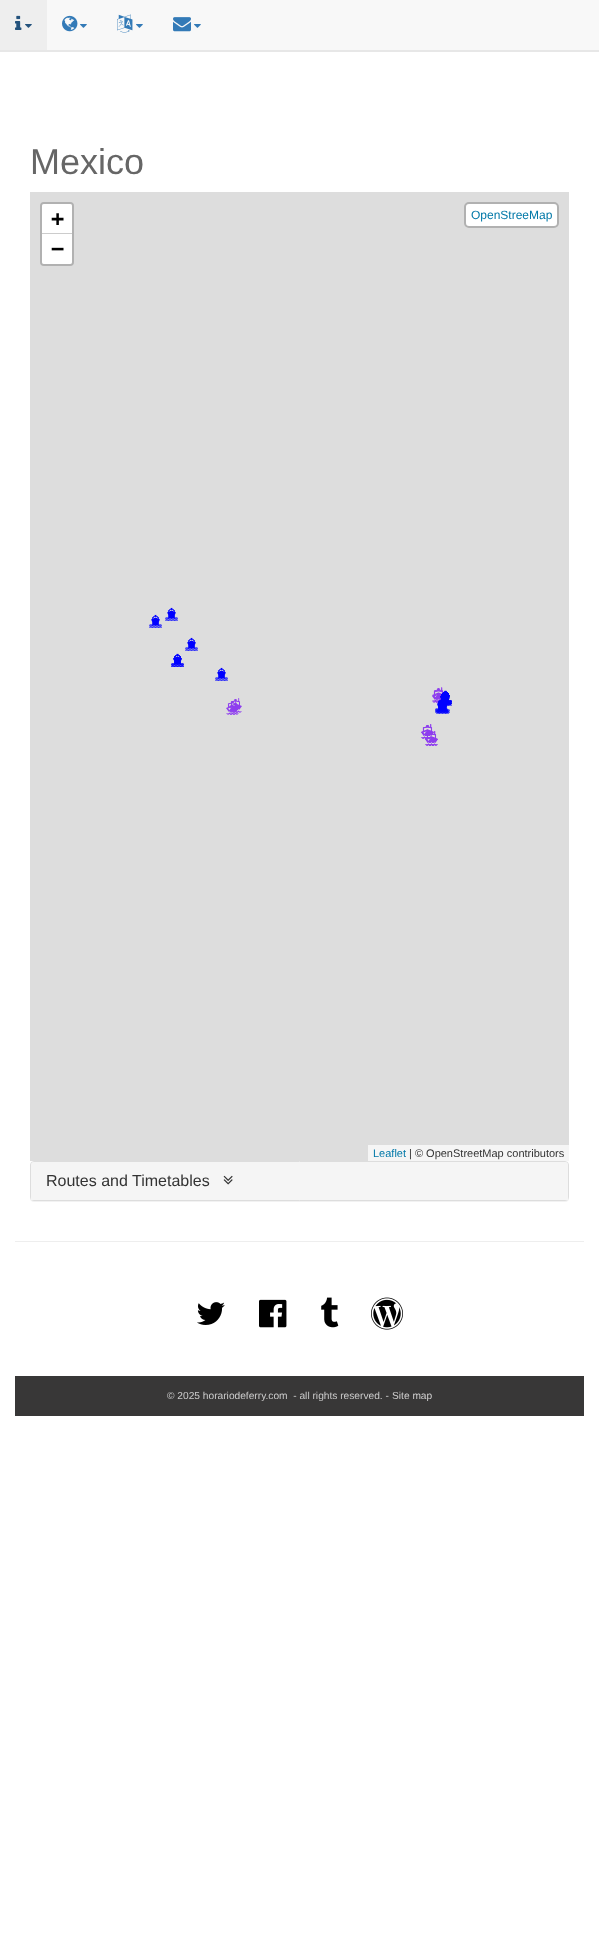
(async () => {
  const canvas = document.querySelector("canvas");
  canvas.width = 599;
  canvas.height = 1939;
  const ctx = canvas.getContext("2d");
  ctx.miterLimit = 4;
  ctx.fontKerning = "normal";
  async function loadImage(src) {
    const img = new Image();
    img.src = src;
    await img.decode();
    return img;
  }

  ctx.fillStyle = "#ffffff";
  ctx.fillRect(0, 0, 599, 1939);
  for (const [x, y, w, h, color] of [
    [47, 0, 552, 50, "#f8f8f8"],
    [0, 50, 599, 2, "#e7e7e7"],
    [0, 0, 47, 50, "#eeeeee"],
  ]) {
    ctx.fillStyle = color;
    ctx.fillRect(x, y, w, h);
  }
  ctx.drawImage(await loadImage("img/1.png"), 15, 15, 7, 15);
  ctx.drawImage(await loadImage("img/2.png"), 25, 24, 7, 4);
  ctx.drawImage(await loadImage("img/3.png"), 62, 15, 16, 17);
  ctx.drawImage(await loadImage("img/4.png"), 80, 24, 7, 4);
  ctx.drawImage(await loadImage("img/5.png"), 117, 14, 16, 19);
  ctx.drawImage(await loadImage("img/4.png"), 136, 24, 7, 4);
  ctx.drawImage(await loadImage("img/6.png"), 173, 17, 18, 15);
  ctx.drawImage(await loadImage("img/4.png"), 194, 24, 7, 4);
  ctx.fillStyle = "rgba(0, 0, 0, 0.05)";
  ctx.filter = "blur(0.5px)";
  ctx.beginPath();
  ctx.roundRect(30, 1162, 539, 40, 4);
  ctx.fill();
  ctx.filter = "none";
  ctx.fillStyle = "#dddddd";
  ctx.fillRect(30, 192, 539, 969);
  ctx.beginPath();
  ctx.roundRect(41, 203, 32, 62, 3);
  ctx.strokeStyle = "#b1b1b1";
  ctx.lineWidth = 2;
  ctx.stroke();
  ctx.fillStyle = "#ffffff";
  ctx.beginPath();
  ctx.roundRect(42, 204, 30, 30, [2, 2, 0, 0]);
  ctx.fill();
  ctx.fillStyle = "#cccccc";
  ctx.fillRect(42, 233, 30, 1);
  ctx.fillStyle = "#ffffff";
  ctx.beginPath();
  ctx.roundRect(42, 234, 30, 30, [0, 0, 2, 2]);
  ctx.fill();
  ctx.beginPath();
  ctx.roundRect(465, 203, 93, 24, 4);
  ctx.fill();
  ctx.stroke();
  ctx.fillStyle = "#f5f5f5";
  ctx.fillRect(368, 1145, 201, 16);
  ctx.drawImage(await loadImage("img/7.png"), 149, 614, 13, 14);
  ctx.drawImage(await loadImage("img/7.png"), 165, 607, 13, 14);
  ctx.drawImage(await loadImage("img/7.png"), 185, 637, 13, 14);
  ctx.drawImage(await loadImage("img/7.png"), 171, 653, 13, 14);
  ctx.drawImage(await loadImage("img/8.png"), 171, 653, 13, 14);
  ctx.drawImage(await loadImage("img/7.png"), 215, 667, 13, 14);
  ctx.drawImage(await loadImage("img/9.png"), 432, 687, 13, 15);
  ctx.drawImage(await loadImage("img/10.png"), 432, 688, 11, 15);
  ctx.drawImage(await loadImage("img/11.png"), 439, 690, 13, 14);
  ctx.drawImage(await loadImage("img/12.png"), 439, 690, 13, 14);
  ctx.drawImage(await loadImage("img/13.png"), 439, 690, 13, 14);
  ctx.drawImage(await loadImage("img/14.png"), 439, 690, 13, 14);
  ctx.drawImage(await loadImage("img/15.png"), 438, 691, 13, 14);
  ctx.drawImage(await loadImage("img/16.png"), 438, 691, 13, 14);
  ctx.drawImage(await loadImage("img/17.png"), 438, 691, 13, 14);
  ctx.drawImage(await loadImage("img/9.png"), 229, 698, 13, 15);
  ctx.drawImage(await loadImage("img/18.png"), 439, 697, 13, 9);
  ctx.drawImage(await loadImage("img/19.png"), 226, 701, 13, 14);
  ctx.drawImage(await loadImage("img/20.png"), 435, 699, 13, 13);
  ctx.drawImage(await loadImage("img/22.png"), 437, 704, 13, 9);
  ctx.drawImage(await loadImage("img/21.png"), 435, 704, 13, 9);
  ctx.drawImage(await loadImage("img/23.png"), 436, 710, 13, 4);
  ctx.drawImage(await loadImage("img/9.png"), 421, 724, 13, 15);
  ctx.drawImage(await loadImage("img/24.png"), 421, 724, 13, 15);
  ctx.drawImage(await loadImage("img/25.png"), 425, 731, 13, 15);
  ctx.drawImage(await loadImage("img/26.png"), 425, 731, 13, 15);
  ctx.beginPath();
  ctx.roundRect(30.5, 1161.5, 538, 39, 3.5);
  ctx.strokeStyle = "#dddddd";
  ctx.lineWidth = 1;
  ctx.stroke();
  ctx.beginPath();
  ctx.roundRect(31, 1162, 537, 38, [3, 3, 0, 0]);
  ctx.fill();
  ctx.drawImage(await loadImage("img/27.png"), 223, 1175, 10, 10);
  ctx.fillStyle = "#eeeeee";
  ctx.fillRect(15, 1241, 569, 1);
  ctx.drawImage(await loadImage("img/28.png"), 197, 1302, 28, 23);
  ctx.drawImage(await loadImage("img/29.png"), 259, 1299, 28, 29);
  ctx.drawImage(await loadImage("img/30.png"), 321, 1297, 18, 31);
  ctx.drawImage(await loadImage("img/31.png"), 371, 1297, 32, 33);
  ctx.fillStyle = "#383737";
  ctx.fillRect(15, 1376, 569, 40);
  ctx.font = "36px Liberation Sans";
  ctx.fillStyle = "#666666";
  ctx.fillText("Mexico", 30, 174);
  ctx.font = "bold 22px DejaVu Sans Mono";
  ctx.fillStyle = "#000000";
  ctx.fillText("+", 51, 226);
  ctx.fillText("−", 51, 256);
  ctx.font = "12px Liberation Sans";
  ctx.fillStyle = "#0078a8";
  ctx.fillText("OpenStreeMap", 471, 219);
  ctx.font = "11px Liberation Sans";
  ctx.fillText("Leaflet", 373, 1157);
  ctx.fillStyle = "#333333";
  ctx.fillText("| © OpenStreetMap contributors", 409, 1157);
  ctx.font = "16px Liberation Sans";
  ctx.fillText("Routes and Timetables", 46, 1186);
  ctx.font = "10.2px Liberation Sans";
  ctx.fillStyle = "#cccccc";
  ctx.fillText("© 2025 horariodeferry.com  - all rights reserved. -", 167, 1399);
  ctx.fillStyle = "#d2d1d1";
  ctx.fillText("Site map", 392, 1399);
})();
